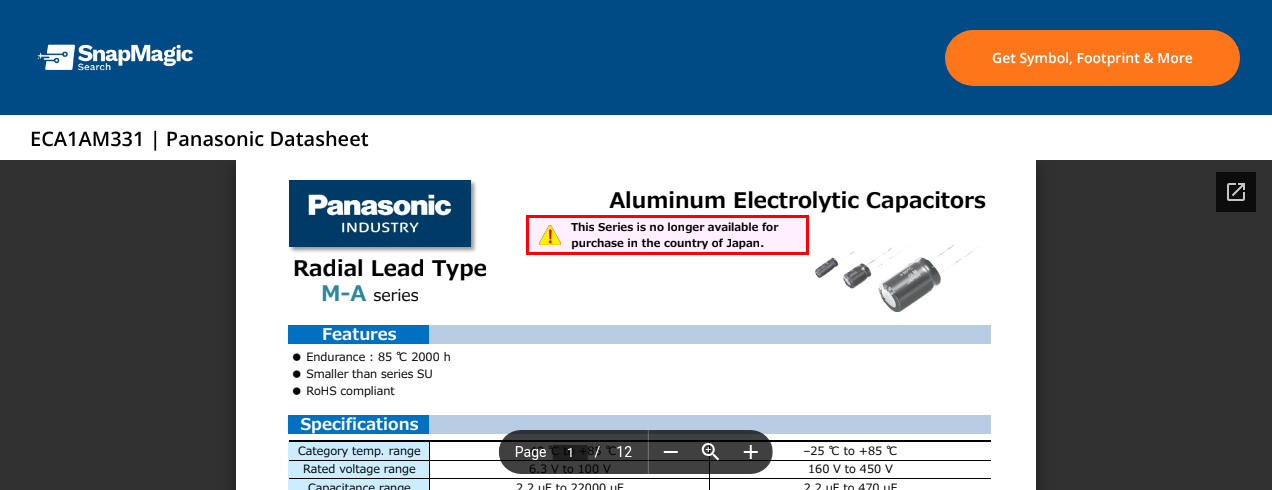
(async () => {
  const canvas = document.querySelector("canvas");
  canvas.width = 1272;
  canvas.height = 490;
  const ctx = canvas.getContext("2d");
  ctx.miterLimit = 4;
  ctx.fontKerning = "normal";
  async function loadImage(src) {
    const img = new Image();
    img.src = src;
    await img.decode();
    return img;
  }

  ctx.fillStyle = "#ffffff";
  ctx.fillRect(0, 0, 1272, 490);
  ctx.fillStyle = "#004a85";
  ctx.fillRect(0, 0, 1272, 115);
  ctx.drawImage(await loadImage("img/1.png"), 37, 44, 156, 27);
  ctx.fillStyle = "#ff761a";
  ctx.beginPath();
  ctx.roundRect(945, 30, 295, 56, 28);
  ctx.fill();
  ctx.drawImage(await loadImage("img/2.png"), 0, 160, 1272, 330);
  ctx.font = "600 14px Open Sans";
  ctx.fillStyle = "#ffffff";
  ctx.fillText("Get Symbol, Footprint & More", 992, 63);
  ctx.font = "600 20px Open Sans";
  ctx.fillStyle = "#000000";
  ctx.fillText("ECA1AM331 | Panasonic Datasheet", 30, 146);
})();
